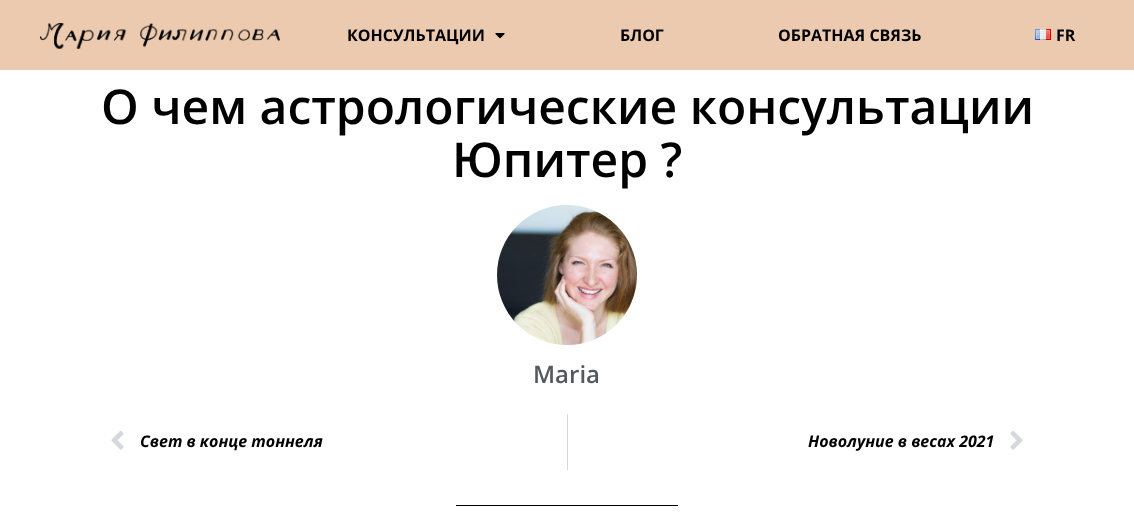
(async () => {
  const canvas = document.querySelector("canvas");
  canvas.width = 1134;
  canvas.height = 514;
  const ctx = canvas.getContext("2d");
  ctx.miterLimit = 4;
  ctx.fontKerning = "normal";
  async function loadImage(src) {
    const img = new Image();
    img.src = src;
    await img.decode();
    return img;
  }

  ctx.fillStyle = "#ffffff";
  ctx.fillRect(0, 0, 1134, 514);
  ctx.fillStyle = "#ebcaaf";
  ctx.fillRect(0, 0, 1134, 70);
  ctx.drawImage(await loadImage("img/1.png"), 40, 23, 240, 26);
  ctx.drawImage(await loadImage("img/2.png"), 495, 33, 10, 6);
  ctx.drawImage(await loadImage("img/3.png"), 1035, 29, 16, 11);
  ctx.drawImage(await loadImage("img/4.png"), 497, 205, 140, 140);
  ctx.drawImage(await loadImage("img/5.png"), 111, 431, 13, 19);
  ctx.fillStyle = "#d5d8dc";
  ctx.fillRect(567, 414, 1, 56);
  ctx.drawImage(await loadImage("img/6.png"), 1010, 431, 13, 19);
  ctx.fillStyle = "#000000";
  ctx.fillRect(456, 505, 222, 1);
  ctx.font = "bold 16px Open Sans";
  for (const [text, x, y] of [
    ["КОНСУЛЬТАЦИИ", 347, 41],
    ["БЛОГ", 620, 41],
    ["ОБРАТНАЯ СВЯЗЬ", 778, 41],
    ["FR", 1056, 41],
  ]) {
    ctx.fillText(text, x, y);
  }
  ctx.font = "600 48px Open Sans";
  ctx.fillText("О чем астрологические консультации", 101, 124);
  ctx.fillText("Юпитер ?", 452, 177);
  ctx.font = "600 24px Open Sans";
  ctx.fillStyle = "#54595f";
  ctx.fillText("Maria", 533, 383);
  ctx.font = "italic bold 16px Open Sans";
  ctx.fillStyle = "#000000";
  ctx.fillText("Свет в конце тоннеля", 140, 447);
  ctx.fillText("Новолуние в весах 2021", 808, 447);
})();
